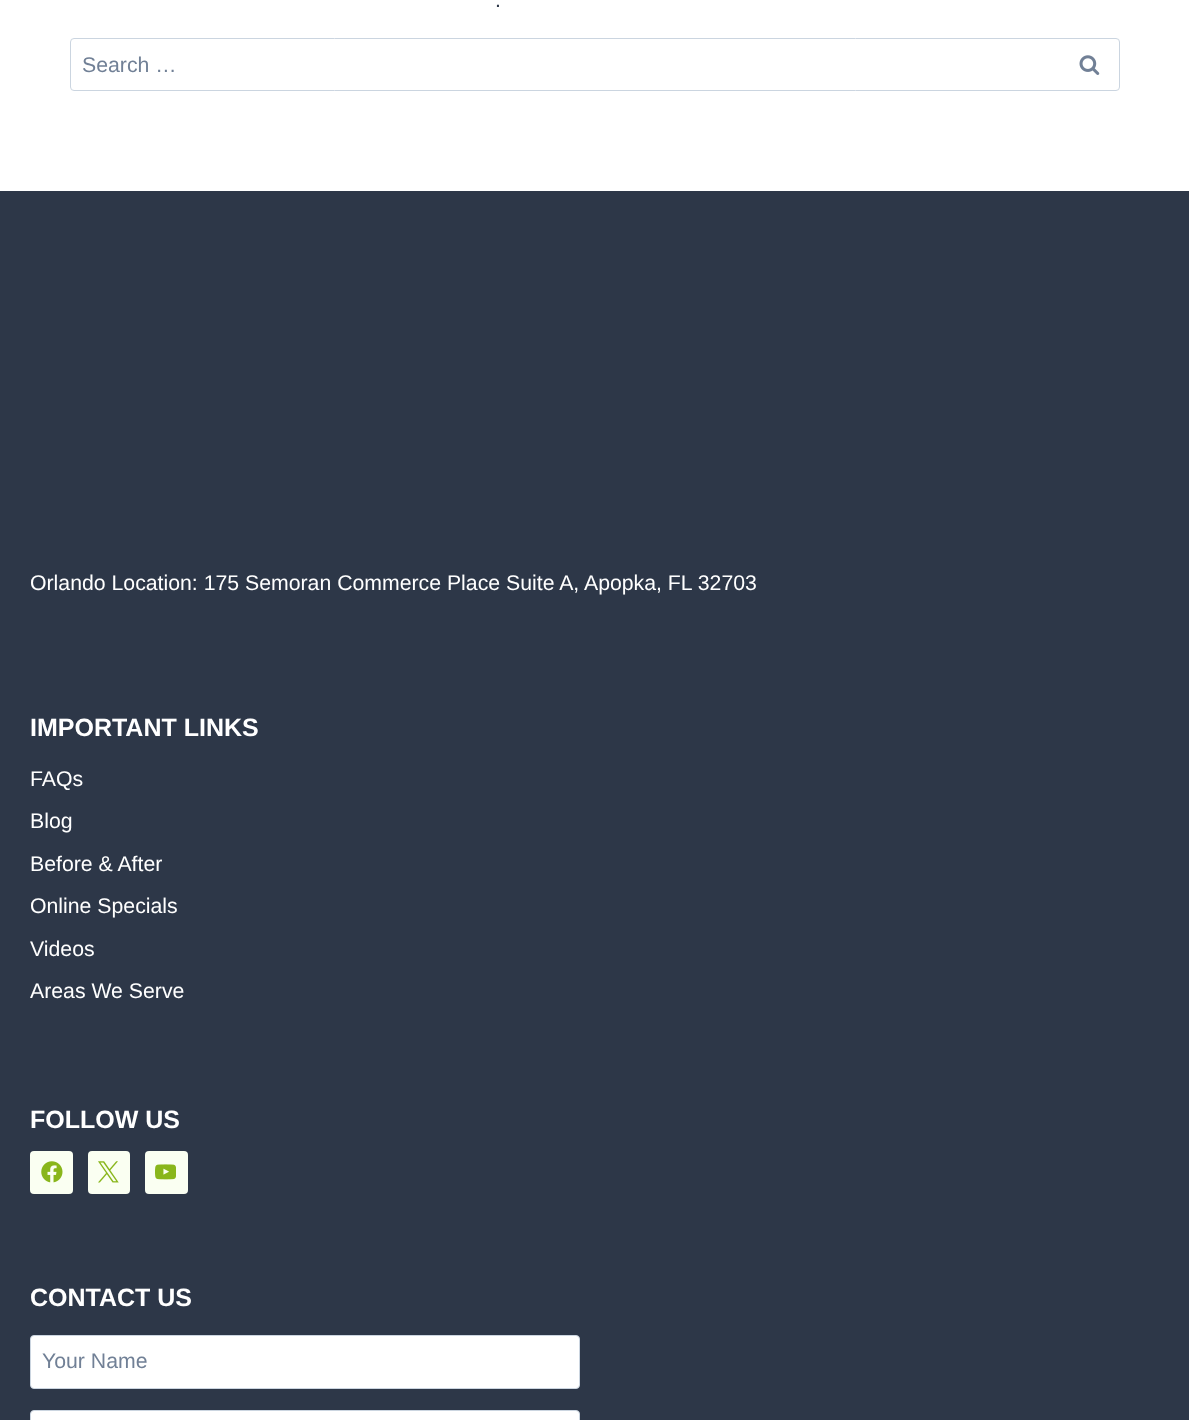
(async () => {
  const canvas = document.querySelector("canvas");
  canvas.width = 1189;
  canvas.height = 1420;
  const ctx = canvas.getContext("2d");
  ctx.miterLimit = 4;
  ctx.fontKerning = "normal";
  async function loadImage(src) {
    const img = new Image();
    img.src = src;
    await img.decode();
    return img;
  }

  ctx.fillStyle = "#ffffff";
  ctx.fillRect(0, 0, 1189, 1420);
  ctx.beginPath();
  ctx.roundRect(70.5, 38.5, 1049, 52, 3.5);
  ctx.strokeStyle = "#cbd5e0";
  ctx.stroke();
  ctx.drawImage(await loadImage("img/1.png"), 1079, 55, 21, 20);
  ctx.fillStyle = "#2d3748";
  ctx.fillRect(0, 191, 1189, 1229);
  ctx.fillStyle = "#fafff2";
  ctx.beginPath();
  ctx.roundRect(30, 1151, 43, 43, 4);
  ctx.fill();
  ctx.drawImage(await loadImage("img/2.png"), 41, 1161, 22, 22);
  ctx.beginPath();
  ctx.roundRect(88, 1151, 42, 43, 4);
  ctx.fill();
  ctx.drawImage(await loadImage("img/3.png"), 98, 1161, 21, 22);
  ctx.beginPath();
  ctx.roundRect(145, 1151, 43, 43, 4);
  ctx.fill();
  ctx.drawImage(await loadImage("img/4.png"), 155, 1164, 21, 16);
  ctx.fillStyle = "#ffffff";
  ctx.beginPath();
  ctx.roundRect(30.5, 1335.5, 549, 53, 3.5);
  ctx.fill();
  ctx.stroke();
  ctx.beginPath();
  ctx.roundRect(30.5, 1410.5, 549, 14, 3.5);
  ctx.fill();
  ctx.stroke();
  ctx.font = "21.25px Liberation Sans";
  ctx.fillStyle = "#2d3748";
  ctx.fillText(".", 495, 7);
  ctx.fillStyle = "#718096";
  ctx.fillText("Search …", 82, 72);
  ctx.fillStyle = "#ffffff";
  ctx.fillText("Orlando Location: 175 Semoran Commerce Place Suite A, Apopka, FL 32703", 30, 590);
  ctx.font = "bold 25px Liberation Sans";
  ctx.fillText("IMPORTANT LINKS", 30, 736);
  ctx.font = "21.25px Liberation Sans";
  for (const [text, x, y] of [
    ["FAQs", 30, 786],
    ["Blog", 30, 828],
    ["Before & After", 30, 871],
    ["Online Specials", 30, 913],
    ["Videos", 30, 956],
    ["Areas We Serve", 30, 998],
  ]) {
    ctx.fillText(text, x, y);
  }
  ctx.font = "bold 25px Liberation Sans";
  ctx.fillText("FOLLOW US", 30, 1128);
  ctx.fillText("CONTACT US", 30, 1306);
  ctx.font = "21.25px Liberation Sans";
  ctx.fillStyle = "#718096";
  ctx.fillText("Your Name", 42, 1368);
})();
